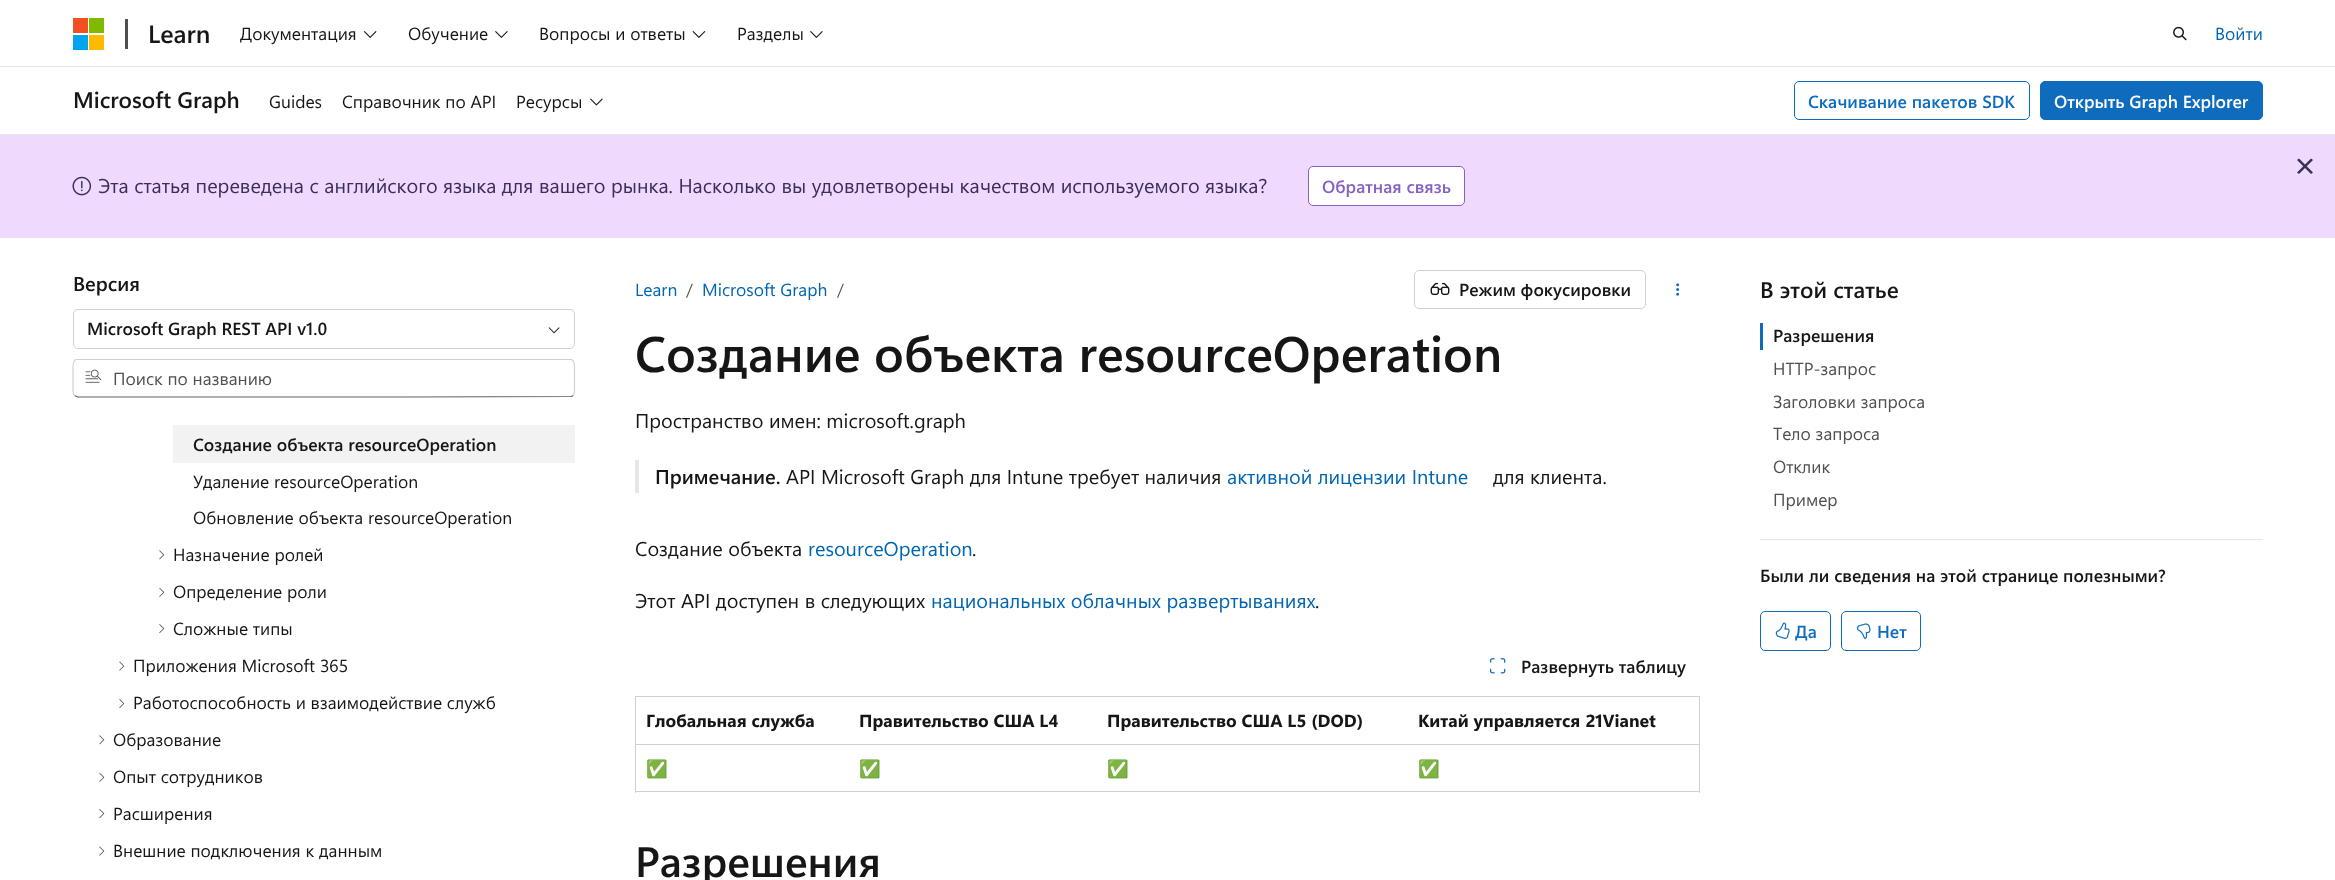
(async () => {
  const canvas = document.querySelector("canvas");
  canvas.width = 2335;
  canvas.height = 880;
  const ctx = canvas.getContext("2d");
  ctx.miterLimit = 4;
  ctx.fontKerning = "none";
  async function loadImage(src) {
    const img = new Image();
    img.src = src;
    await img.decode();
    return img;
  }
  let path;

  ctx.fillStyle = "#ffffff";
  ctx.fillRect(0, 0, 2335, 880);
  for (const [x, y, w, h, color] of [
    [0, 66, 2335, 1, "#e6e6e6"],
    [73, 18, 15, 15, "#f25022"],
    [89, 18, 15, 15, "#7fba00"],
    [73, 35, 15, 15, "#00a4ef"],
    [89, 35, 15, 15, "#ffb900"],
    [125, 19, 3, 30, "#505050"],
  ]) {
    ctx.fillStyle = color;
    ctx.fillRect(x, y, w, h);
  }
  ctx.drawImage(await loadImage("img/1.png"), 363, 31, 14, 7);
  ctx.drawImage(await loadImage("img/2.png"), 495, 31, 13, 7);
  ctx.drawImage(await loadImage("img/3.png"), 692, 31, 14, 7);
  ctx.drawImage(await loadImage("img/2.png"), 810, 31, 13, 7);
  ctx.drawImage(await loadImage("img/4.png"), 2173, 26, 14, 15);
  ctx.fillStyle = "#e6e6e6";
  ctx.fillRect(0, 134, 2335, 1);
  ctx.drawImage(await loadImage("img/5.png"), 590, 98, 13, 8);
  ctx.beginPath();
  ctx.roundRect(1794.5, 81.5, 235, 38, 4.5);
  ctx.strokeStyle = "#0f6cbd";
  ctx.stroke();
  ctx.fillStyle = "#0f6cbd";
  ctx.beginPath();
  ctx.roundRect(2040.5, 81.5, 222, 38, 4.5);
  ctx.fill();
  ctx.stroke();
  ctx.fillStyle = "#efd9fd";
  ctx.fillRect(0, 135, 2335, 103);
  ctx.fillStyle = "#3b2e58";
  path = new Path2D("M2299 158.5L2313 172.5L2311 174L2297 160Z");
  ctx.fill(path);
  path = new Path2D("M2311 158.5L2313 160L2299 174L2297 172.5Z");
  ctx.fill(path);
  ctx.drawImage(await loadImage("img/6.png"), 72, 176, 20, 20);
  ctx.fillStyle = "#ffffff";
  ctx.beginPath();
  ctx.roundRect(1308.5, 166.5, 156, 39, 4.5);
  ctx.fill();
  ctx.strokeStyle = "#8661c5";
  ctx.stroke();
  ctx.beginPath();
  ctx.roundRect(73.5, 309.5, 501, 39, 4.5);
  ctx.strokeStyle = "#d1d1d1";
  ctx.stroke();
  ctx.drawImage(await loadImage("img/7.png"), 548, 327, 12, 7);
  path = new Path2D("M573 395.5L571.5 396.5L406 397H77.5L74.5 395.5");
  ctx.strokeStyle = "#616161";
  ctx.lineWidth = 1.2;
  ctx.stroke(path);
  path = new Path2D("M74.5 395.5C72.5 393.5 73 390 73 387.5V368.5C73 365.5 72.5 361 76 359.5H571.5C575 361 574.5 365.5 574.5 368.5V387.5C574.5 390 575 393.5 573 395.5");
  ctx.strokeStyle = "#d1d1d1";
  ctx.stroke(path);
  ctx.drawImage(await loadImage("img/8.png"), 85, 369, 17, 14);
  ctx.fillStyle = "#f2f2f2";
  ctx.fillRect(173, 425, 402, 38);
  ctx.drawImage(await loadImage("img/9.png"), 159, 550, 6, 10);
  ctx.drawImage(await loadImage("img/10.png"), 159, 587, 6, 10);
  ctx.drawImage(await loadImage("img/11.png"), 159, 624, 6, 10);
  ctx.drawImage(await loadImage("img/12.png"), 119, 661, 6, 10);
  ctx.drawImage(await loadImage("img/11.png"), 119, 699, 6, 10);
  ctx.drawImage(await loadImage("img/9.png"), 99, 735, 6, 10);
  ctx.drawImage(await loadImage("img/10.png"), 99, 772, 6, 10);
  ctx.drawImage(await loadImage("img/11.png"), 99, 809, 6, 10);
  ctx.drawImage(await loadImage("img/12.png"), 99, 846, 6, 10);
  ctx.beginPath();
  ctx.roundRect(1414.5, 270.5, 231, 38, 4.5);
  ctx.lineWidth = 1;
  ctx.stroke();
  ctx.drawImage(await loadImage("img/13.png"), 1430, 282, 20, 14);
  ctx.drawImage(await loadImage("img/14.png"), 1676, 283, 4, 13);
  ctx.fillStyle = "#e6e6e6";
  ctx.fillRect(635, 460, 4, 33);
  ctx.drawImage(await loadImage("img/15.png"), 1490, 658, 16, 16);
  for (const [x, y, w, h, color] of [
    [635, 696, 1065, 1, "#d1d1d1"],
    [1699, 696, 1, 97, "#d1d1d1"],
    [635, 791, 1065, 1, "#d1d1d1"],
    [635, 696, 1, 97, "#d1d1d1"],
    [635, 744, 1065, 1, "#d1d1d1"],
    [1760, 539, 503, 1, "#e6e6e6"],
    [1760, 323, 3, 27, "#0f6cbd"],
  ]) {
    ctx.fillStyle = color;
    ctx.fillRect(x, y, w, h);
  }
  ctx.beginPath();
  ctx.roundRect(1760.5, 611.5, 70, 39, 4.5);
  ctx.strokeStyle = "#0f6cbd";
  ctx.stroke();
  ctx.drawImage(await loadImage("img/16.png"), 1775, 622, 15, 17);
  ctx.beginPath();
  ctx.roundRect(1841.5, 611.5, 79, 39, 4.5);
  ctx.stroke();
  ctx.drawImage(await loadImage("img/17.png"), 1857, 623, 14, 16);
  ctx.font = "600 25px Segoe UI";
  ctx.fillStyle = "#161616";
  ctx.fillText("Learn", 148, 43);
  ctx.font = "17.5px Segoe UI";
  for (const [text, x, y] of [
    ["Документация", 240, 40],
    ["Обучение", 408, 40],
    ["Вопросы и ответы", 539, 40],
    ["Разделы", 737, 40],
  ]) {
    ctx.fillText(text, x, y);
  }
  ctx.fillStyle = "#0065b3";
  ctx.fillText("Войти", 2215, 40);
  ctx.font = "600 22.5px Segoe UI";
  ctx.fillStyle = "#161616";
  ctx.fillText("Microsoft Graph", 73, 108);
  ctx.font = "17.5px Segoe UI";
  for (const [text, x, y] of [
    ["Guides", 269, 108],
    ["Справочник по API", 342, 108],
    ["Ресурсы", 516, 108],
  ]) {
    ctx.fillText(text, x, y);
  }
  ctx.font = "600 17.5px Segoe UI";
  ctx.fillStyle = "#0f6cbd";
  ctx.fillText("Скачивание пакетов SDK", 1808, 108);
  ctx.fillStyle = "#ffffff";
  ctx.fillText("Открыть Graph Explorer", 2054, 108);
  ctx.font = "20px Segoe UI";
  ctx.fillStyle = "#3b2e58";
  ctx.fillText("Эта статья переведена с английского языка для вашего рынка. Насколько вы удовлетворены качеством используемого языка?", 98, 193);
  ctx.font = "600 17.5px Segoe UI";
  ctx.fillStyle = "#8661c5";
  ctx.fillText("Обратная связь", 1322, 193);
  ctx.font = "600 20px Segoe UI";
  ctx.fillStyle = "#161616";
  ctx.fillText("Версия", 73, 291);
  ctx.font = "600 17.5px Segoe UI";
  ctx.fillText("Microsoft Graph REST API v1.0", 87, 335);
  ctx.font = "17.5px Segoe UI";
  ctx.fillStyle = "#505050";
  ctx.fillText("Поиск по названию", 113, 385);
  ctx.font = "600 17.5px Segoe UI";
  ctx.fillStyle = "#161616";
  ctx.fillText("Создание объекта resourceOperation", 193, 451);
  ctx.font = "17.5px Segoe UI";
  for (const [text, x, y] of [
    ["Удаление resourceOperation", 193, 488],
    ["Обновление объекта resourceOperation", 193, 524],
    ["Назначение ролей", 173, 561],
    ["Определение роли", 173, 598],
    ["Сложные типы", 173, 635],
    ["Приложения Microsoft 365", 133, 672],
    ["Работоспособность и взаимодействие служб", 133, 709],
    ["Образование", 113, 746],
    ["Опыт сотрудников", 113, 783],
    ["Расширения", 113, 820],
    ["Внешние подключения к данным", 113, 857],
  ]) {
    ctx.fillText(text, x, y);
  }
  ctx.fillStyle = "#0065b3";
  ctx.fillText("Learn", 635, 296);
  ctx.fillStyle = "#505050";
  ctx.fillText("/", 686, 296);
  ctx.fillStyle = "#0065b3";
  ctx.fillText("Microsoft Graph", 702, 296);
  ctx.fillStyle = "#505050";
  ctx.fillText("/", 837, 296);
  ctx.font = "600 17.5px Segoe UI";
  ctx.fillStyle = "#161616";
  ctx.fillText("Режим фокусировки", 1459, 296);
  ctx.font = "600 50px Segoe UI";
  ctx.fillText("Создание объекта resourceOperation", 635, 372);
  ctx.font = "20px Segoe UI";
  ctx.fillText("Пространство имен: microsoft.graph", 635, 428);
  ctx.font = "600 20px Segoe UI";
  ctx.fillText("Примечание.", 655, 484);
  ctx.font = "20px Segoe UI";
  ctx.fillText("API Microsoft Graph для Intune требует наличия", 786, 484);
  ctx.fillStyle = "#0065b3";
  ctx.fillText("активной лицензии Intune", 1227, 484);
  ctx.fillStyle = "#161616";
  ctx.fillText("для клиента.", 1493, 484);
  ctx.fillText("Создание объекта", 635, 556);
  ctx.fillStyle = "#0065b3";
  ctx.fillText("resourceOperation", 808, 556);
  ctx.fillStyle = "#161616";
  ctx.fillText(".", 972, 556);
  ctx.fillText("Этот API доступен в следующих", 635, 608);
  ctx.fillStyle = "#0065b3";
  ctx.fillText("национальных облачных развертываниях", 931, 608);
  ctx.fillStyle = "#161616";
  ctx.fillText(".", 1315, 608);
  ctx.font = "600 17.5px Segoe UI";
  ctx.fillText("Развернуть таблицу", 1521, 673);
  ctx.font = "bold 17.5px Segoe UI";
  for (const [text, x, y] of [
    ["Глобальная служба", 646, 727],
    ["Правительство США L4", 859, 727],
    ["Правительство США L5 (DOD)", 1107, 727],
    ["Китай управляется 21Vianet", 1418, 727],
  ]) {
    ctx.fillText(text, x, y);
  }
  ctx.font = "17.5px Noto Color Emoji";
  for (const [text, x, y] of [
    ["✅", 646, 775],
    ["✅", 859, 775],
    ["✅", 1107, 775],
    ["✅", 1418, 775],
  ]) {
    ctx.fillText(text, x, y);
  }
  ctx.font = "600 42.5px Segoe UI";
  ctx.fillText("Разрешения", 635, 877);
  ctx.font = "600 22.5px Segoe UI";
  ctx.fillText("В этой статье", 1760, 298);
  ctx.font = "600 17.5px Segoe UI";
  ctx.fillText("Разрешения", 1773, 342);
  ctx.font = "17.5px Segoe UI";
  ctx.fillStyle = "#505050";
  for (const [text, x, y] of [
    ["HTTP-запрос", 1773, 375],
    ["Заголовки запроса", 1773, 408],
    ["Тело запроса", 1773, 440],
    ["Отклик", 1773, 473],
    ["Пример", 1773, 506],
  ]) {
    ctx.fillText(text, x, y);
  }
  ctx.font = "600 17.5px Segoe UI";
  ctx.fillStyle = "#161616";
  ctx.fillText("Были ли сведения на этой странице полезными?", 1760, 582);
  ctx.fillStyle = "#0f6cbd";
  ctx.fillText("Да", 1795, 638);
  ctx.fillText("Нет", 1877, 638);
})();
